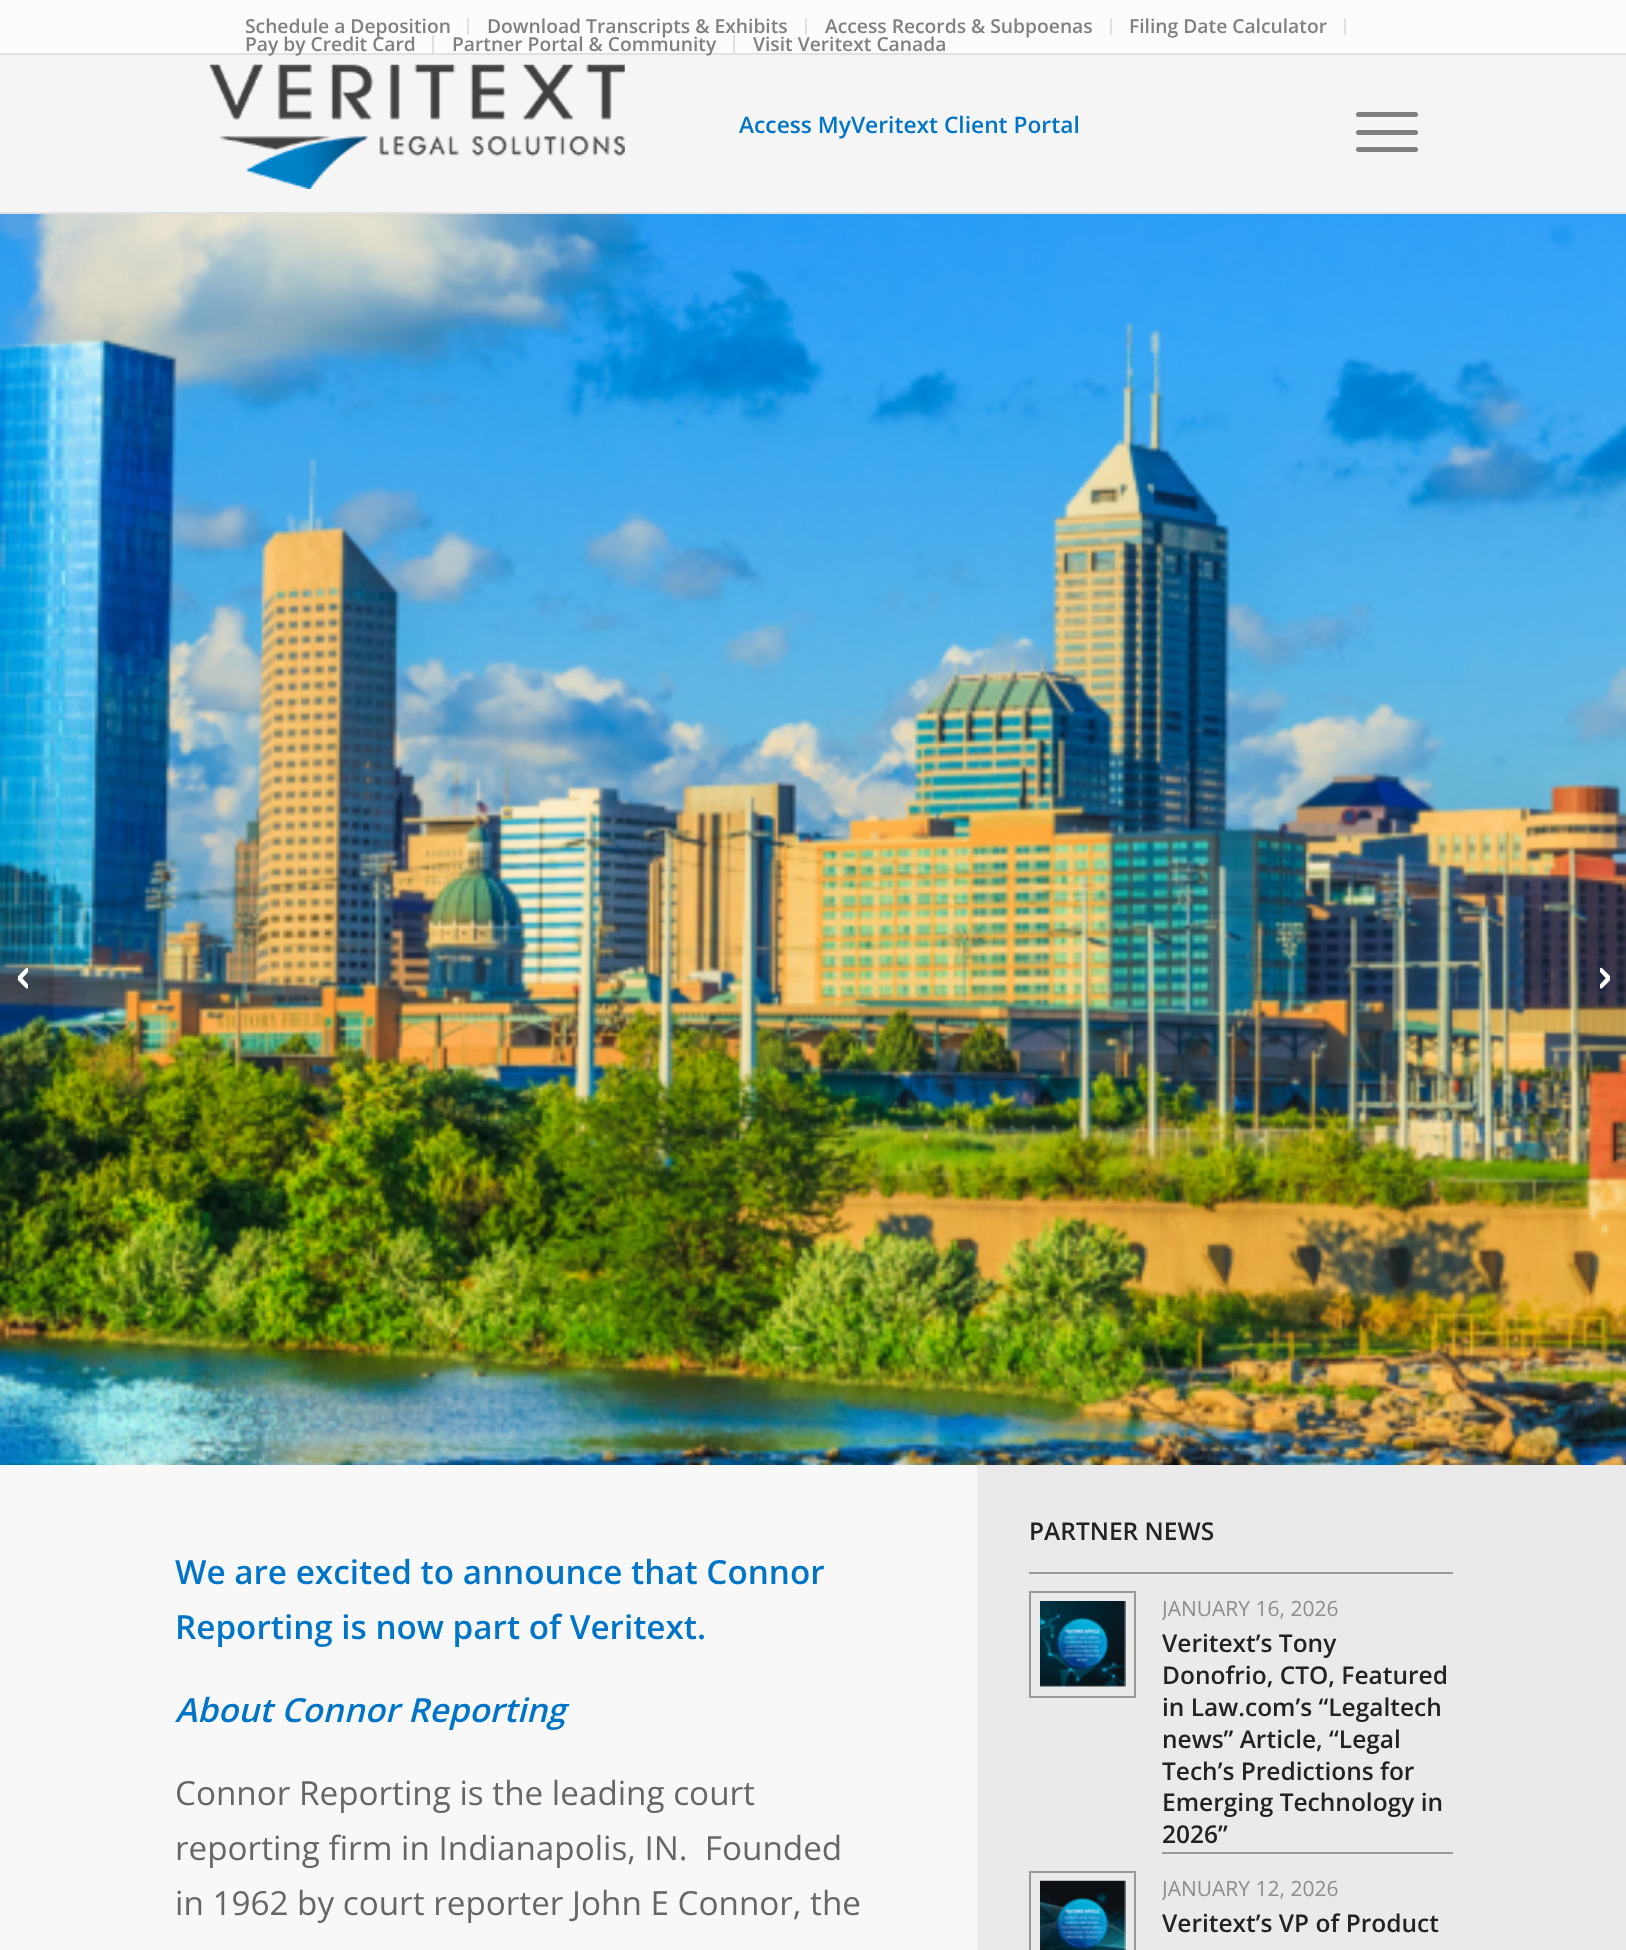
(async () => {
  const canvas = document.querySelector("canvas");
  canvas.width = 1626;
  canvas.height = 1950;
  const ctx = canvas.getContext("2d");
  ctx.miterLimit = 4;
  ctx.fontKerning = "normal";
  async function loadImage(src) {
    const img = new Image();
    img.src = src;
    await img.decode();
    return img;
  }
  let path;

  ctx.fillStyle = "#ffffff";
  ctx.fillRect(0, 0, 1626, 1950);
  for (const [x, y, w, h, color] of [
    [0, 0, 1626, 53, "#fcfcfc"],
    [0, 53, 1626, 2, "#e1e1e1"],
    [467, 18, 2, 17, "#e1e1e1"],
    [805, 18, 2, 17, "#e1e1e1"],
    [1110, 18, 2, 17, "#e1e1e1"],
    [1344, 18, 2, 17, "#e1e1e1"],
    [0, 55, 1626, 157, "#f5f5f5"],
    [0, 212, 1626, 2, "#e1e1e1"],
  ]) {
    ctx.fillStyle = color;
    ctx.fillRect(x, y, w, h);
  }
  ctx.drawImage(await loadImage("img/1.png"), 210, 64, 415, 125);
  ctx.fillStyle = "#808080";
  ctx.beginPath();
  ctx.roundRect(1356, 130, 62, 5, 2.5);
  ctx.fill();
  ctx.beginPath();
  ctx.roundRect(1356, 112, 62, 5, 2.5);
  ctx.fill();
  ctx.beginPath();
  ctx.roundRect(1356, 147, 62, 5, 2.5);
  ctx.fill();
  ctx.drawImage(await loadImage("img/4.png"), 0, 214, 1626, 1251);
  ctx.fillStyle = "rgba(0, 0, 0, 0.1)";
  ctx.beginPath();
  ctx.roundRect(0, 880, 54, 193, [0, 7, 7, 0]);
  ctx.fill();
  ctx.drawImage(await loadImage("img/2.png"), 18, 967, 10, 22);
  path = new Path2D("M1580 880H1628V1073H1580C1576 1073 1573 1070 1573 1066V887C1573 883 1576 880 1580 880Z");
  ctx.fill(path);
  ctx.drawImage(await loadImage("img/3.png"), 1600, 967, 10, 22);
  for (const [x, y, w, h, color] of [
    [0, 1465, 977, 485, "#f8f8f8"],
    [977, 1465, 649, 485, "#eaeaea"],
    [1029, 1572, 424, 2, "#999999"],
  ]) {
    ctx.fillStyle = color;
    ctx.fillRect(x, y, w, h);
  }
  ctx.strokeStyle = "#999999";
  ctx.lineWidth = 2;
  ctx.strokeRect(1030, 1592, 105, 105);
  ctx.drawImage(await loadImage("img/5.png"), 1040, 1601, 86, 86);
  ctx.fillRect(1162, 1852, 291, 2);
  ctx.strokeRect(1030, 1872, 105, 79);
  ctx.drawImage(await loadImage("img/6.png"), 1040, 1880, 86, 70);
  ctx.font = "600 19.25px Open Sans";
  ctx.fillStyle = "#808080";
  for (const [text, x, y] of [
    ["Schedule a Deposition", 245, 33],
    ["Download Transcripts & Exhibits", 487, 33],
    ["Access Records & Subpoenas", 825, 33],
    ["Filing Date Calculator", 1129, 33],
  ]) {
    ctx.fillText(text, x, y);
  }
  ctx.fillStyle = "#e1e1e1";
  ctx.fillRect(432, 35, 2, 18);
  ctx.fillStyle = "#808080";
  ctx.fillText("Pay by Credit Card", 245, 51);
  ctx.fillStyle = "#e1e1e1";
  ctx.fillRect(733, 35, 2, 18);
  ctx.fillStyle = "#808080";
  ctx.fillText("Partner Portal & Community", 452, 51);
  ctx.fillText("Visit Veritext Canada", 753, 51);
  ctx.font = "600 22.75px Open Sans";
  ctx.fillStyle = "#0075c8";
  ctx.fillText("Access MyVeritext Client Portal", 739, 133);
  ctx.font = "600 33.25px Open Sans";
  ctx.fillText("We are excited to announce that Connor", 175, 1584);
  ctx.fillText("Reporting is now part of Veritext.", 175, 1639);
  ctx.font = "italic 600 33.25px Open Sans";
  ctx.fillText("About Connor Reporting", 175, 1722);
  ctx.font = "33.25px Open Sans";
  ctx.fillStyle = "#666666";
  for (const [text, x, y] of [
    ["Connor Reporting is the leading court", 175, 1805],
    ["reporting firm in Indianapolis, IN.  Founded", 175, 1860],
    ["in 1962 by court reporter John E Connor, the", 175, 1915],
  ]) {
    ctx.fillText(text, x, y);
  }
  ctx.font = "600 24.5px Open Sans";
  ctx.fillStyle = "#222222";
  ctx.fillText("PARTNER NEWS", 1029, 1540);
  ctx.save();
  ctx.beginPath();
  ctx.rect(1162, 1591, 291, 261);
  ctx.clip();
  ctx.font = "21px Open Sans";
  ctx.fillStyle = "#8d8d8d";
  ctx.fillText("JANUARY 16, 2026", 1162, 1616);
  ctx.restore();
  for (const [text, x, y] of [
    ["Veritext’s Tony", 1162, 1652],
    ["Donofrio, CTO, Featured", 1162, 1684],
    ["in Law.com’s “Legaltech", 1162, 1716],
    ["news” Article, “Legal", 1162, 1748],
    ["Tech’s Predictions for", 1162, 1780],
    ["Emerging Technology in", 1162, 1811],
    ["2026”", 1162, 1843],
  ]) {
    ctx.fillText(text, x, y);
  }
  ctx.save();
  ctx.beginPath();
  ctx.rect(1162, 1871, 291, 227);
  ctx.clip();
  ctx.font = "21px Open Sans";
  ctx.fillStyle = "#8d8d8d";
  ctx.fillText("JANUARY 12, 2026", 1162, 1896);
  ctx.restore();
  ctx.fillText("Veritext’s VP of Product", 1162, 1932);
})();
